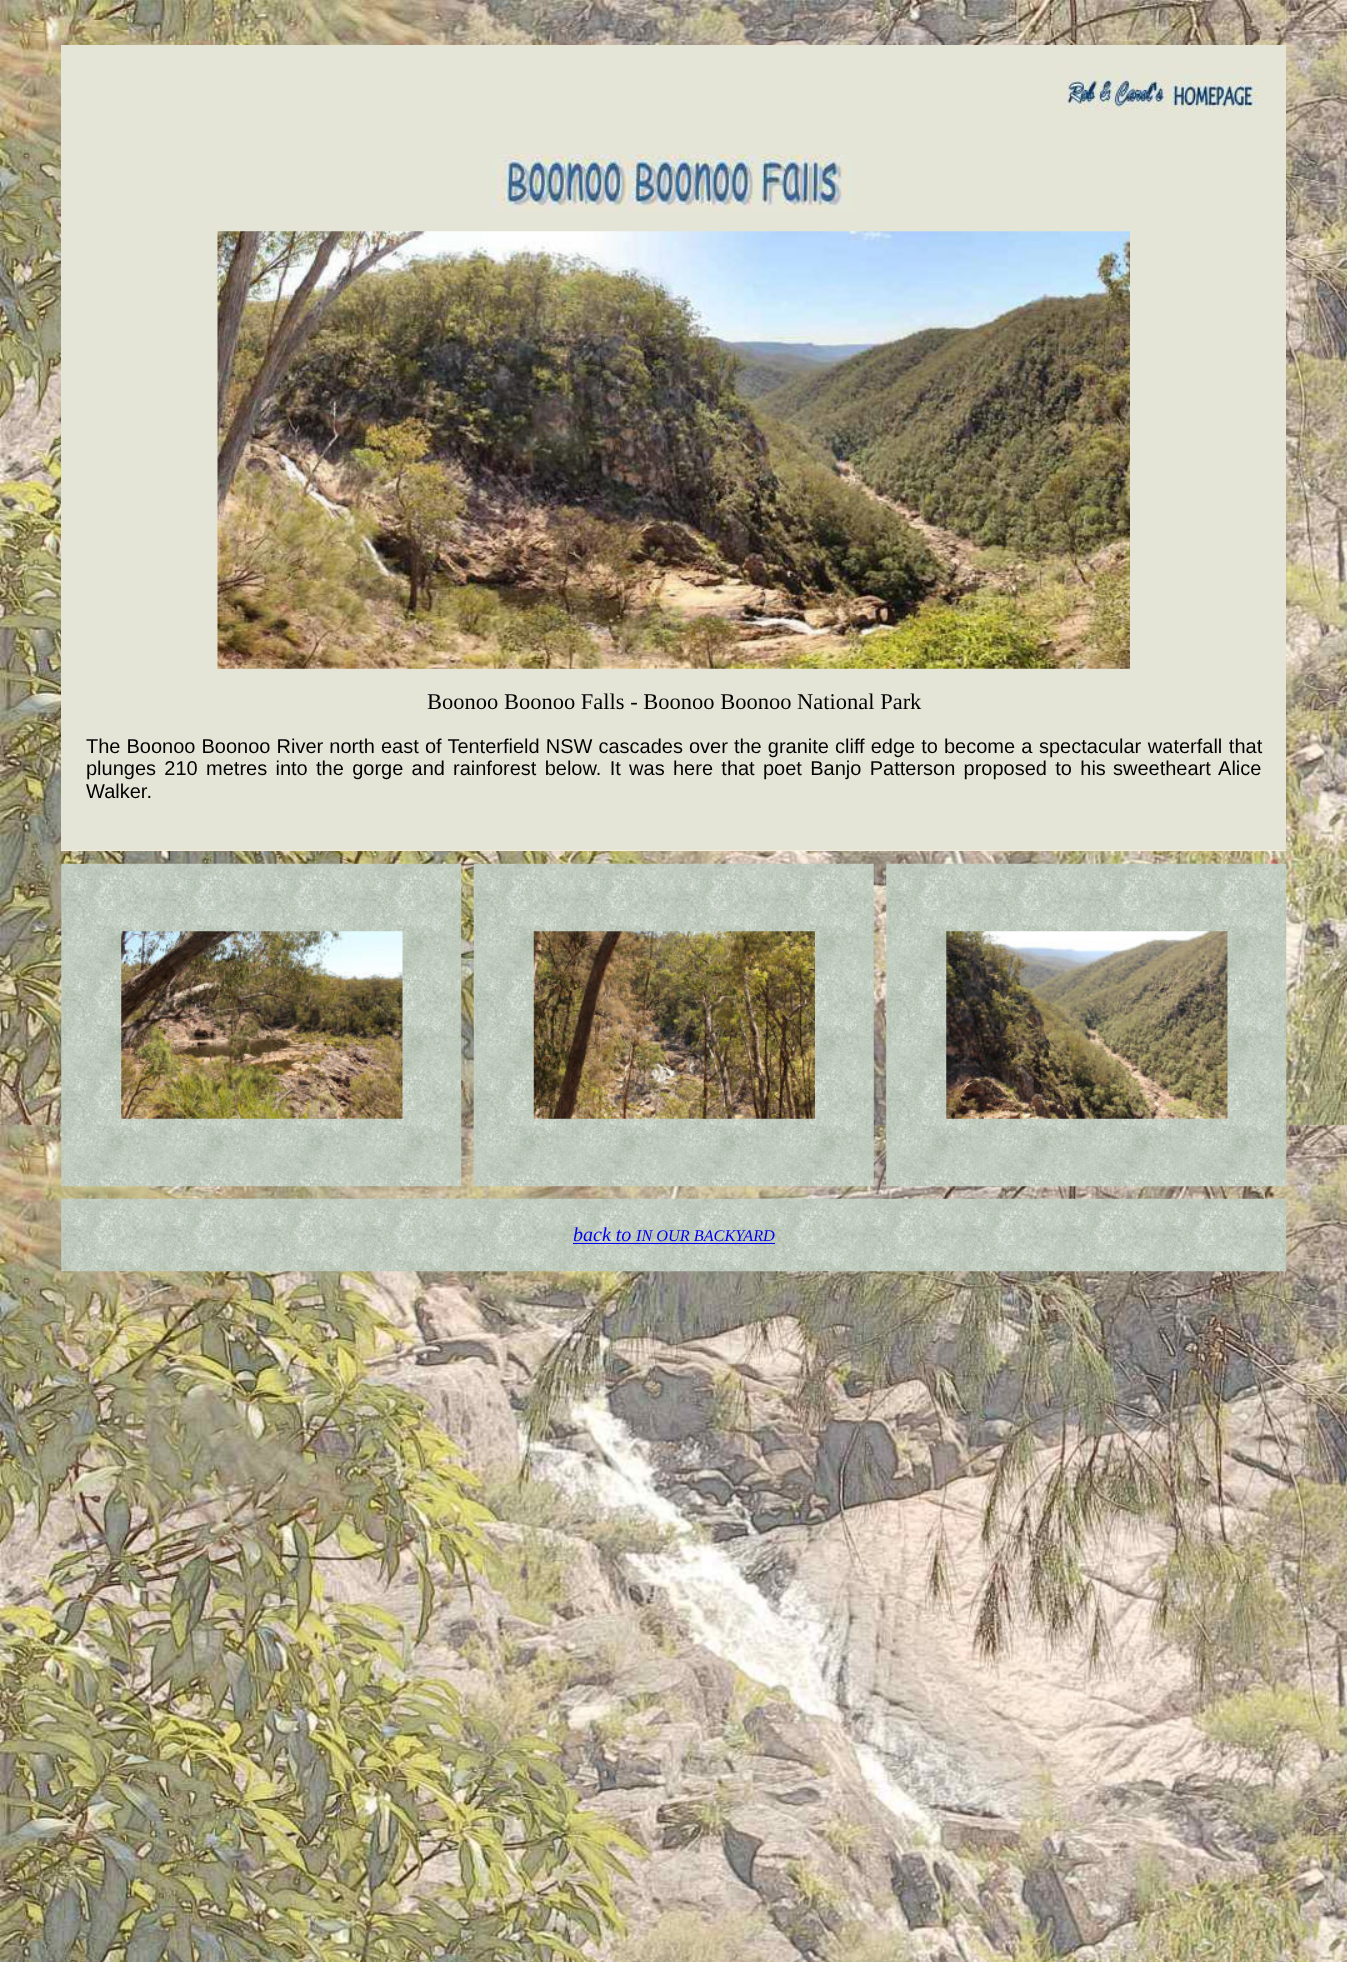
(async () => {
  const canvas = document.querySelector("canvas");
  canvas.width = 1347;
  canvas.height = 1962;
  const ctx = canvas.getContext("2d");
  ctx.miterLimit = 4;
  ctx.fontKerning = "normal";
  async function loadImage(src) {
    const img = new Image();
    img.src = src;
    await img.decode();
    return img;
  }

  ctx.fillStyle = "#ffffff";
  ctx.fillRect(0, 0, 1347, 1962);
  ctx.drawImage(await loadImage("img/1.png"), 0, 0, 1347, 1962);
  ctx.fillStyle = "#e5e5d7";
  ctx.fillRect(61, 45, 1225, 805);
  ctx.fillStyle = "#f9eed9";
  ctx.fillRect(61, 850, 1225, 1);
  ctx.drawImage(await loadImage("img/2.png"), 1058, 70, 201, 41);
  ctx.drawImage(await loadImage("img/3.png"), 492, 155, 361, 56);
  ctx.drawImage(await loadImage("img/4.png"), 217, 231, 913, 438);
  ctx.drawImage(await loadImage("img/5.png"), 61, 863, 401, 324);
  ctx.drawImage(await loadImage("img/6.png"), 121, 931, 282, 188);
  ctx.drawImage(await loadImage("img/7.png"), 473, 863, 401, 324);
  ctx.drawImage(await loadImage("img/8.png"), 533, 931, 282, 188);
  ctx.drawImage(await loadImage("img/9.png"), 886, 863, 401, 324);
  ctx.drawImage(await loadImage("img/10.png"), 946, 931, 282, 188);
  ctx.drawImage(await loadImage("img/11.png"), 61, 1198, 1226, 74);
  ctx.fillStyle = "#0000ee";
  ctx.fillRect(573, 1243, 202, 1);
  ctx.font = "22.5px Liberation Serif";
  ctx.fillStyle = "#000000";
  ctx.fillText("Boonoo Boonoo Falls - Boonoo Boonoo National Park", 427, 709);
  ctx.wordSpacing = "0.5px";
  ctx.font = "20px Liberation Sans";
  ctx.fillText("The Boonoo Boonoo River north east", 86, 753);
  ctx.fillText("of Tenterfield NSW cascades over the granite cliff edge to become a", 425, 753);
  ctx.wordSpacing = "1px";
  ctx.fillText("spectacular waterfall that", 1039, 753);
  ctx.wordSpacing = "2.75px";
  for (const [text, x, y] of [
    ["plunges 210 metres into the gorge and", 86, 775],
    ["rainforest below. It was here that poet Banjo Patterson proposed to his", 453, 775],
    ["sweetheart Alice", 1113, 775],
  ]) {
    ctx.fillText(text, x, y);
  }
  ctx.wordSpacing = "0px";
  ctx.fillText("Walker.", 86, 798);
  ctx.font = "italic 20px Liberation Serif";
  ctx.fillStyle = "#0000ee";
  ctx.fillText("back to", 573, 1241);
  ctx.font = "italic 16.25px Liberation Serif";
  ctx.fillText("IN OUR BACKYARD", 636, 1241);
})();
